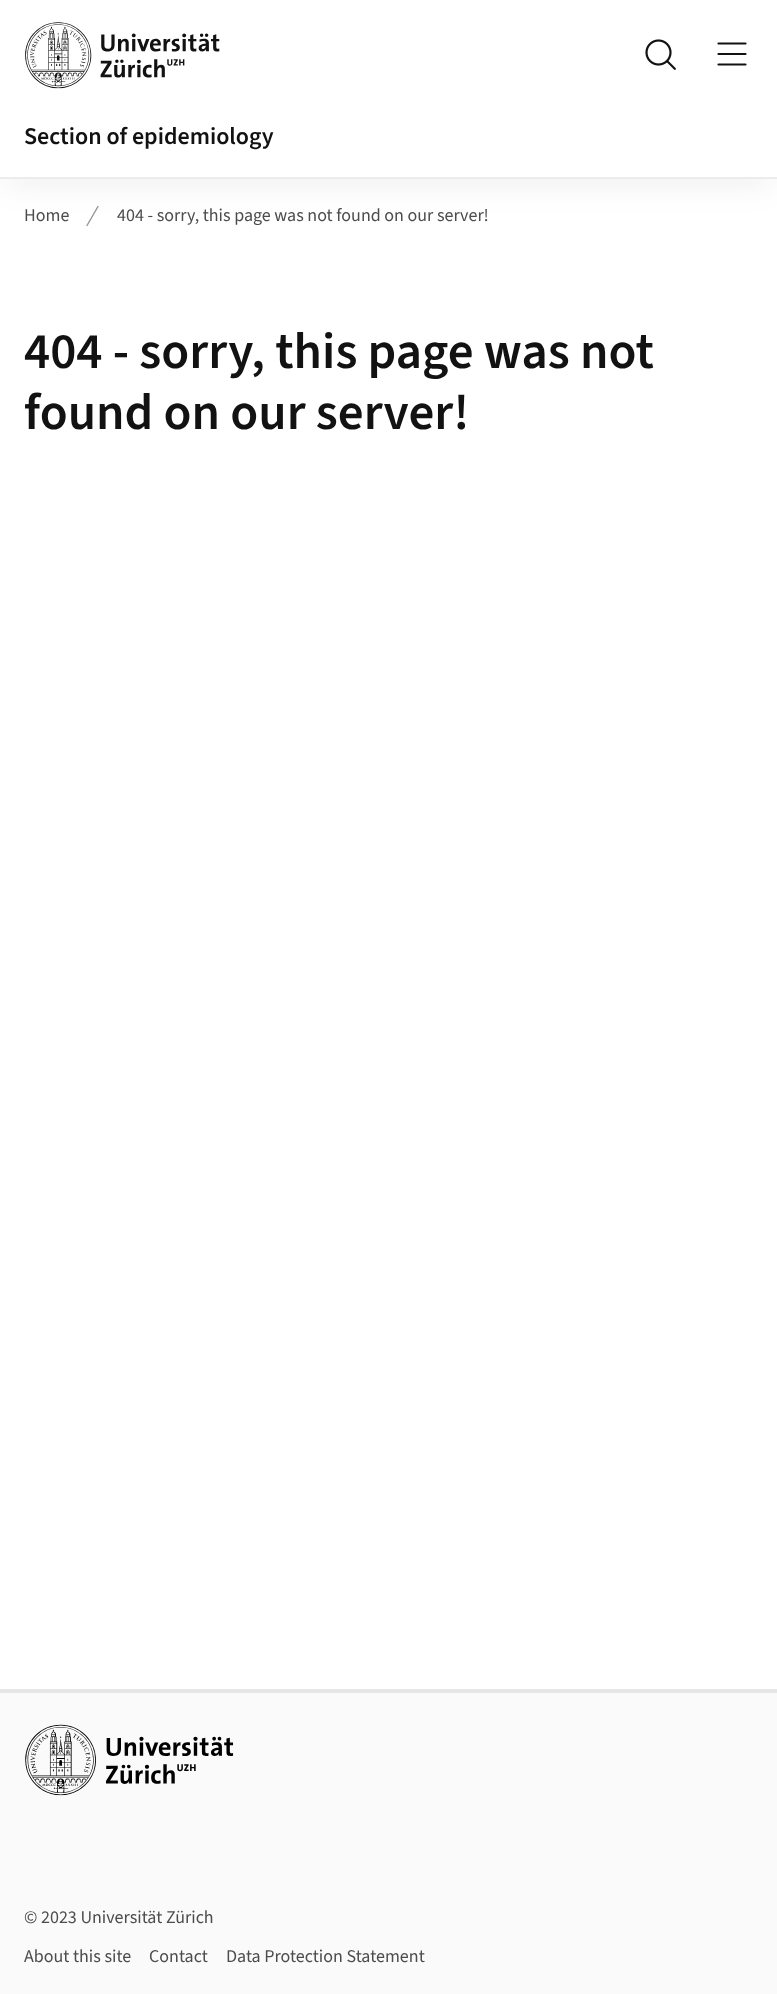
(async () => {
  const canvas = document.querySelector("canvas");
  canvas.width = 777;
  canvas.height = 1994;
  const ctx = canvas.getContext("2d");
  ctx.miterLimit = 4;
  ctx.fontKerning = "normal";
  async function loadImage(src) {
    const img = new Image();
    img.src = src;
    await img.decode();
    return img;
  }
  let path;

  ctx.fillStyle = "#ffffff";
  ctx.fillRect(0, 0, 777, 1994);
  path = new Path2D("M87 225.5L98 206.5");
  ctx.strokeStyle = "#949494";
  ctx.lineWidth = 1.4;
  ctx.lineCap = "round";
  ctx.stroke(path);
  ctx.fillStyle = "rgba(18, 18, 18, 0.07)";
  ctx.filter = "blur(16.5px)";
  ctx.beginPath();
  ctx.rect(6, 17, 765, 166);
  ctx.fill();
  ctx.filter = "none";
  ctx.fillStyle = "#ffffff";
  ctx.fillRect(0, 0, 777, 177);
  ctx.fillStyle = "#ececec";
  ctx.fillRect(0, 177, 777, 2);
  ctx.drawImage(await loadImage("img/1.png"), 25, 22, 195, 67);
  ctx.drawImage(await loadImage("img/2.png"), 645, 39, 31, 31);
  path = new Path2D("M718.5 43.5H745.5M718.5 54H745.5M718.5 64.5H745.5");
  ctx.strokeStyle = "#121212";
  ctx.lineWidth = 2.2;
  ctx.lineJoin = "round";
  ctx.stroke(path);
  ctx.fillStyle = "#fafafa";
  ctx.fillRect(0, 1693, 777, 301);
  ctx.fillStyle = "#e6e6e6";
  ctx.fillRect(0, 1689, 777, 4);
  ctx.drawImage(await loadImage("img/3.png"), 25, 1724, 209, 72);
  ctx.font = "600 24px 'Source Sans 3'";
  ctx.fillStyle = "#121212";
  ctx.fillText("Section of epidemiology", 24, 144);
  ctx.font = "18px 'Source Sans 3'";
  ctx.fillStyle = "#4c4c4c";
  ctx.fillText("Home", 24, 221);
  ctx.fillText("404 - sorry, this page was not found on our server!", 117, 221);
  ctx.font = "600 51px 'Source Sans 3'";
  ctx.fillStyle = "#121212";
  ctx.fillText("404 - sorry, this page was not", 24, 368);
  ctx.fillText("found on our server!", 24, 429);
  ctx.font = "18px 'Source Sans 3'";
  ctx.fillStyle = "#4c4c4c";
  for (const [text, x, y] of [
    ["© 2023 Universität Zürich", 24, 1923],
    ["About this site", 24, 1962],
    ["Contact", 149, 1962],
    ["Data Protection Statement", 226, 1962],
  ]) {
    ctx.fillText(text, x, y);
  }
})();
